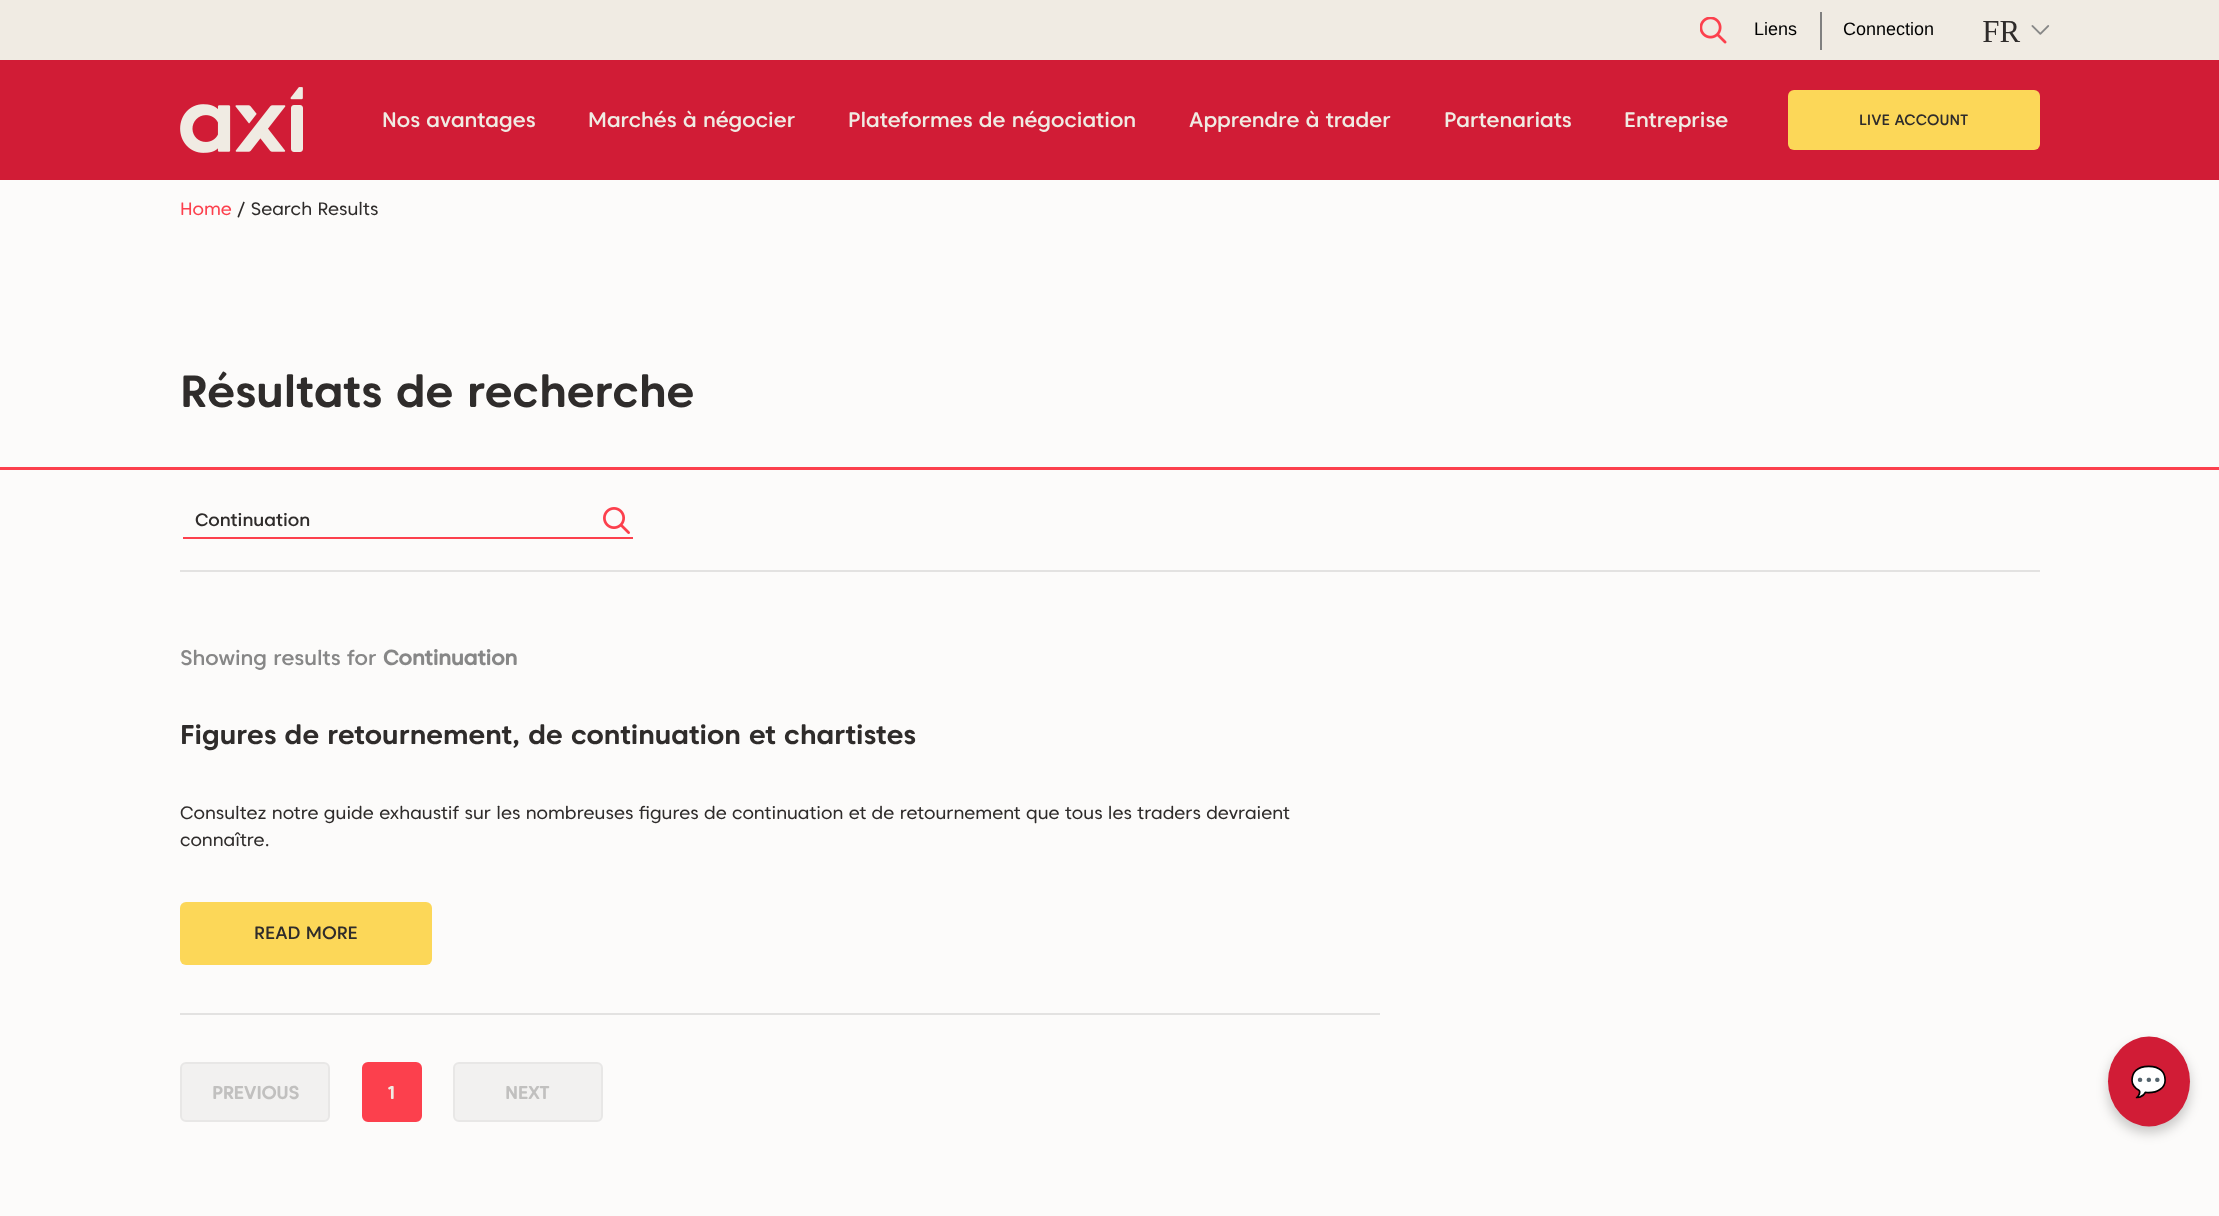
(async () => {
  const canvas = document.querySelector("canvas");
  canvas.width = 2219;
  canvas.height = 1216;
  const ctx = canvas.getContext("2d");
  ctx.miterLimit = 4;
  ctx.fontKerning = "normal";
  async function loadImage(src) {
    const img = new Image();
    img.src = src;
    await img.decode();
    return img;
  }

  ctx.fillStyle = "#fcfbfa";
  ctx.fillRect(0, 0, 2219, 1216);
  ctx.fillStyle = "#f0ebe3";
  ctx.fillRect(0, 0, 2219, 60);
  ctx.drawImage(await loadImage("img/1.png"), 1700, 17, 27, 27);
  ctx.fillStyle = "#808080";
  ctx.fillRect(1820, 12, 2, 38);
  ctx.drawImage(await loadImage("img/2.png"), 2031, 25, 19, 10);
  ctx.drawImage(await loadImage("img/3.png"), 1983, 21, 38, 21);
  ctx.fillStyle = "#d11c36";
  ctx.fillRect(0, 60, 2219, 120);
  ctx.drawImage(await loadImage("img/4.png"), 180, 87, 123, 66);
  ctx.fillStyle = "#fcd758";
  ctx.beginPath();
  ctx.roundRect(1788, 90, 252, 60, 6);
  ctx.fill();
  for (const [x, y, w, h, color] of [
    [0, 467, 2219, 3, "#fc404d"],
    [180, 570, 1860, 2, "#e3e2e1"],
    [183, 537, 450, 2, "#fc404d"],
  ]) {
    ctx.fillStyle = color;
    ctx.fillRect(x, y, w, h);
  }
  ctx.drawImage(await loadImage("img/5.png"), 603, 507, 27, 27);
  ctx.fillStyle = "#e3e2e1";
  ctx.fillRect(180, 1013, 1200, 2);
  ctx.fillStyle = "#fcd758";
  ctx.beginPath();
  ctx.roundRect(180, 902, 252, 63, 6);
  ctx.fill();
  ctx.fillStyle = "#f2f1f0";
  ctx.beginPath();
  ctx.roundRect(181, 1063, 148, 58, 5);
  ctx.fill();
  ctx.strokeStyle = "#e8e7e6";
  ctx.lineWidth = 2;
  ctx.stroke();
  ctx.fillStyle = "#fc404d";
  ctx.beginPath();
  ctx.roundRect(363, 1063, 58, 58, 5);
  ctx.fill();
  ctx.strokeStyle = "#fc404d";
  ctx.stroke();
  ctx.fillStyle = "#f2f1f0";
  ctx.beginPath();
  ctx.roundRect(454, 1063, 148, 58, 5);
  ctx.fill();
  ctx.strokeStyle = "#e8e7e6";
  ctx.stroke();
  ctx.fillStyle = "rgba(0, 0, 0, 0.2)";
  ctx.filter = "blur(6px)";
  ctx.beginPath();
  ctx.roundRect(2108, 1043, 82, 90, 41);
  ctx.fill();
  ctx.filter = "none";
  ctx.fillStyle = "#d11c36";
  ctx.beginPath();
  ctx.ellipse(2149, 1081.5, 41, 45, 0, 0, Math.PI * 2);
  ctx.fill();
  ctx.font = "18px Liberation Sans";
  ctx.fillStyle = "#000000";
  ctx.fillText("Liens", 1754, 35);
  ctx.fillText("Connection", 1843, 35);
  ctx.font = "500 21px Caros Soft";
  ctx.fillStyle = "#f0ebe3";
  for (const [text, x, y] of [
    ["Nos avantages", 382, 127],
    ["Marchés à négocier", 588, 127],
    ["Plateformes de négociation", 848, 127],
    ["Apprendre à trader", 1189, 127],
    ["Partenariats", 1444, 127],
    ["Entreprise", 1624, 127],
  ]) {
    ctx.fillText(text, x, y);
  }
  ctx.font = "500 15px Caros Soft";
  ctx.fillStyle = "#2f2c2b";
  ctx.fillText("LIVE ACCOUNT", 1859, 125);
  ctx.font = "18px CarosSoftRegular";
  ctx.fillStyle = "#fc404d";
  ctx.fillText("Home", 180, 215);
  ctx.fillStyle = "#2f2c2b";
  ctx.fillText("/ Search Results", 237, 215);
  ctx.font = "bold 45px Caros Soft";
  ctx.fillText("Résultats de recherche", 180, 407);
  ctx.font = "500 18px Caros Soft";
  ctx.fillText("Continuation", 195, 526);
  ctx.font = "500 21px Caros Soft";
  ctx.fillStyle = "#878787";
  ctx.fillText("Showing results for", 180, 665);
  ctx.font = "bold 21px 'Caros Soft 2'";
  ctx.fillText("Continuation", 383, 665);
  ctx.font = "bold 27px Caros Soft";
  ctx.fillStyle = "#2f2c2b";
  ctx.fillText("Figures de retournement, de continuation et chartistes", 180, 744);
  ctx.font = "18px CarosSoftRegular";
  ctx.fillText("Consultez notre guide exhaustif sur les nombreuses figures de continuation et de retournement que tous les traders devraient", 180, 819);
  ctx.fillText("connaître.", 180, 846);
  ctx.font = "500 18px Caros Soft";
  ctx.fillText("READ MORE", 254, 939);
  ctx.font = "bold 18px 'Caros Soft 2'";
  ctx.fillStyle = "#c1c0bf";
  ctx.fillText("PREVIOUS", 212, 1099);
  ctx.fillStyle = "#f0ebe3";
  ctx.fillText("1", 386, 1099);
  ctx.fillStyle = "#c1c0bf";
  ctx.fillText("NEXT", 505, 1099);
  ctx.font = "30px Noto Color Emoji";
  ctx.fillStyle = "#ffffff";
  ctx.fillText("💬", 2130, 1092);
})();
